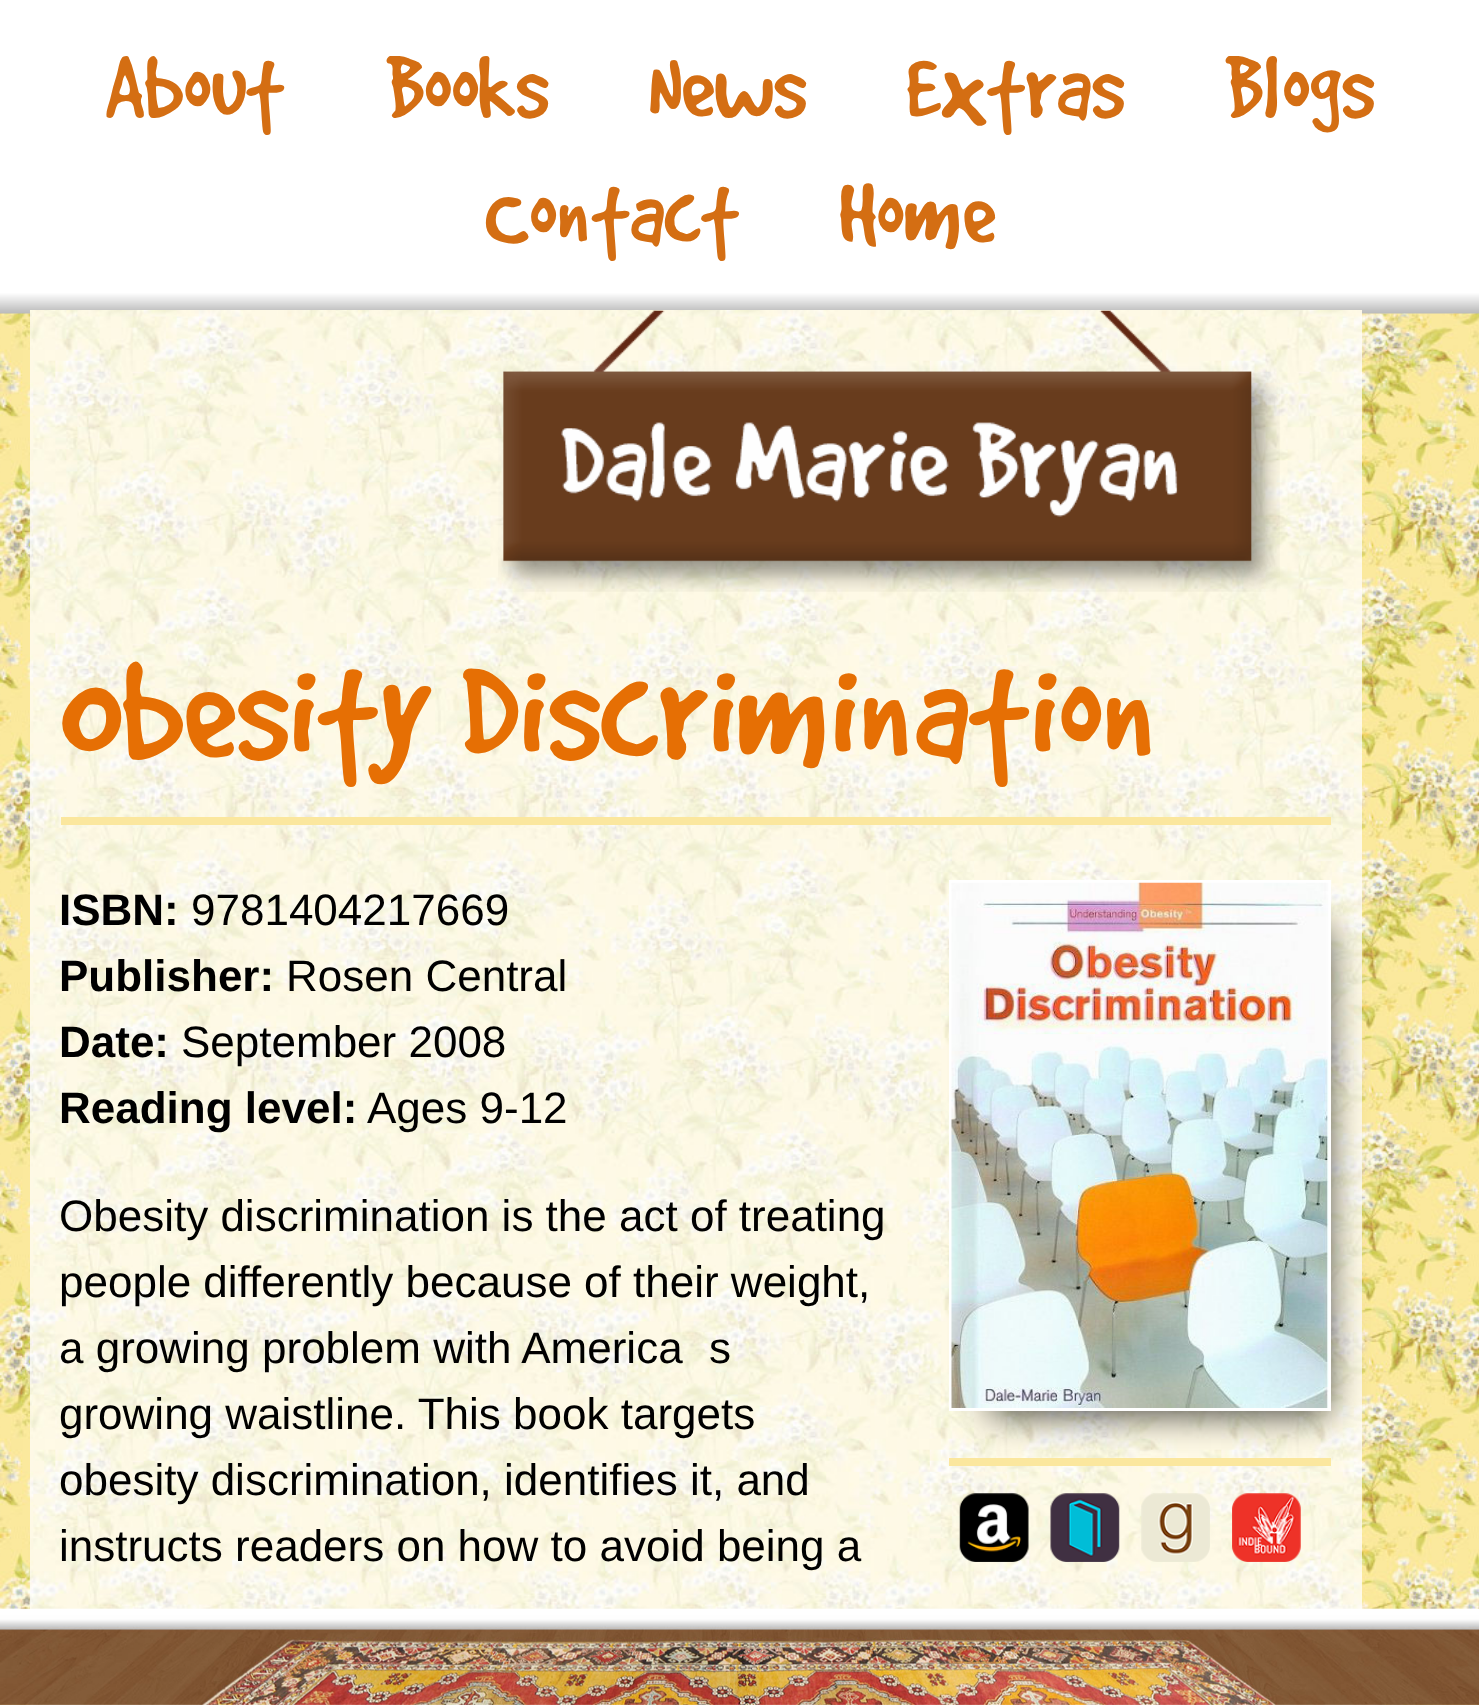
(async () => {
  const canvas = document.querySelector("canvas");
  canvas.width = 1479;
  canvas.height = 1705;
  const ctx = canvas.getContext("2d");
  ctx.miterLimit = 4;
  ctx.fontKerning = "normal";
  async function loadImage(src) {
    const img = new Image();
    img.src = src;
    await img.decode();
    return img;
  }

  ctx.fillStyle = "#ffffff";
  ctx.fillRect(0, 0, 1479, 1705);
  ctx.drawImage(await loadImage("img/1.png"), 0, 313, 1479, 1392);
  ctx.drawImage(await loadImage("img/2.png"), 0, 281, 1479, 33);
  ctx.drawImage(await loadImage("img/4.png"), 30, 310, 1332, 1395);
  ctx.drawImage(await loadImage("img/3.png"), 498, 310, 782, 282);
  ctx.fillStyle = "#fbe79e";
  ctx.fillRect(61, 817, 1270, 8);
  ctx.fillRect(949, 1458, 382, 8);
  ctx.fillStyle = "rgba(0, 0, 0, 0.75)";
  ctx.filter = "blur(18px)";
  ctx.beginPath();
  ctx.rect(990, 927, 338, 487);
  ctx.fill();
  ctx.filter = "none";
  ctx.strokeStyle = "#ffffff";
  ctx.lineWidth = 3;
  ctx.strokeRect(950.5, 881.5, 379, 528);
  ctx.drawImage(await loadImage("img/5.png"), 951, 882, 378, 526);
  ctx.drawImage(await loadImage("img/6.png"), 959, 1493, 70, 69);
  ctx.drawImage(await loadImage("img/7.png"), 1050, 1493, 70, 69);
  ctx.drawImage(await loadImage("img/8.png"), 1141, 1493, 69, 69);
  ctx.drawImage(await loadImage("img/9.png"), 1232, 1493, 69, 69);
  ctx.drawImage(await loadImage("img/10.png"), 0, 1608, 1479, 97);
  ctx.font = "97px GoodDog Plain";
  ctx.fillStyle = "#d46e13";
  for (const [text, x, y] of [
    ["About", 105, 118],
    ["Books", 385, 118],
    ["News", 648, 118],
    ["Extras", 906, 118],
    ["Blogs", 1224, 118],
    ["Contact", 485, 244],
    ["Home", 838, 244],
  ]) {
    ctx.fillText(text, x, y);
  }
  ctx.font = "154px GoodDog Plain";
  ctx.fillStyle = "#e66f04";
  ctx.fillText("Obesity Discrimination", 59, 760);
  ctx.font = "bold 44px Liberation Sans";
  ctx.fillStyle = "#000000";
  ctx.fillText("ISBN:", 59, 925);
  ctx.font = "44px Liberation Sans";
  ctx.fillText("9781404217669", 191, 925);
  ctx.font = "bold 44px Liberation Sans";
  ctx.fillText("Publisher:", 59, 991);
  ctx.font = "44px Liberation Sans";
  ctx.fillText("Rosen Central", 286, 991);
  ctx.font = "bold 44px Liberation Sans";
  ctx.fillText("Date:", 59, 1057);
  ctx.font = "44px Liberation Sans";
  ctx.fillText("September 2008", 181, 1057);
  ctx.font = "bold 44px Liberation Sans";
  ctx.fillText("Reading level:", 59, 1123);
  ctx.font = "44px Liberation Sans";
  for (const [text, x, y] of [
    ["Ages 9-12", 367, 1123],
    ["Obesity discrimination is the act of treating", 59, 1231],
    ["people differently because of their weight,", 59, 1297],
    ["a growing problem with America", 59, 1363],
    ["s", 709, 1363],
    ["growing waistline. This book targets", 59, 1429],
    ["obesity discrimination, identifies it, and", 59, 1495],
    ["instructs readers on how to avoid being a", 59, 1561],
  ]) {
    ctx.fillText(text, x, y);
  }
})();
